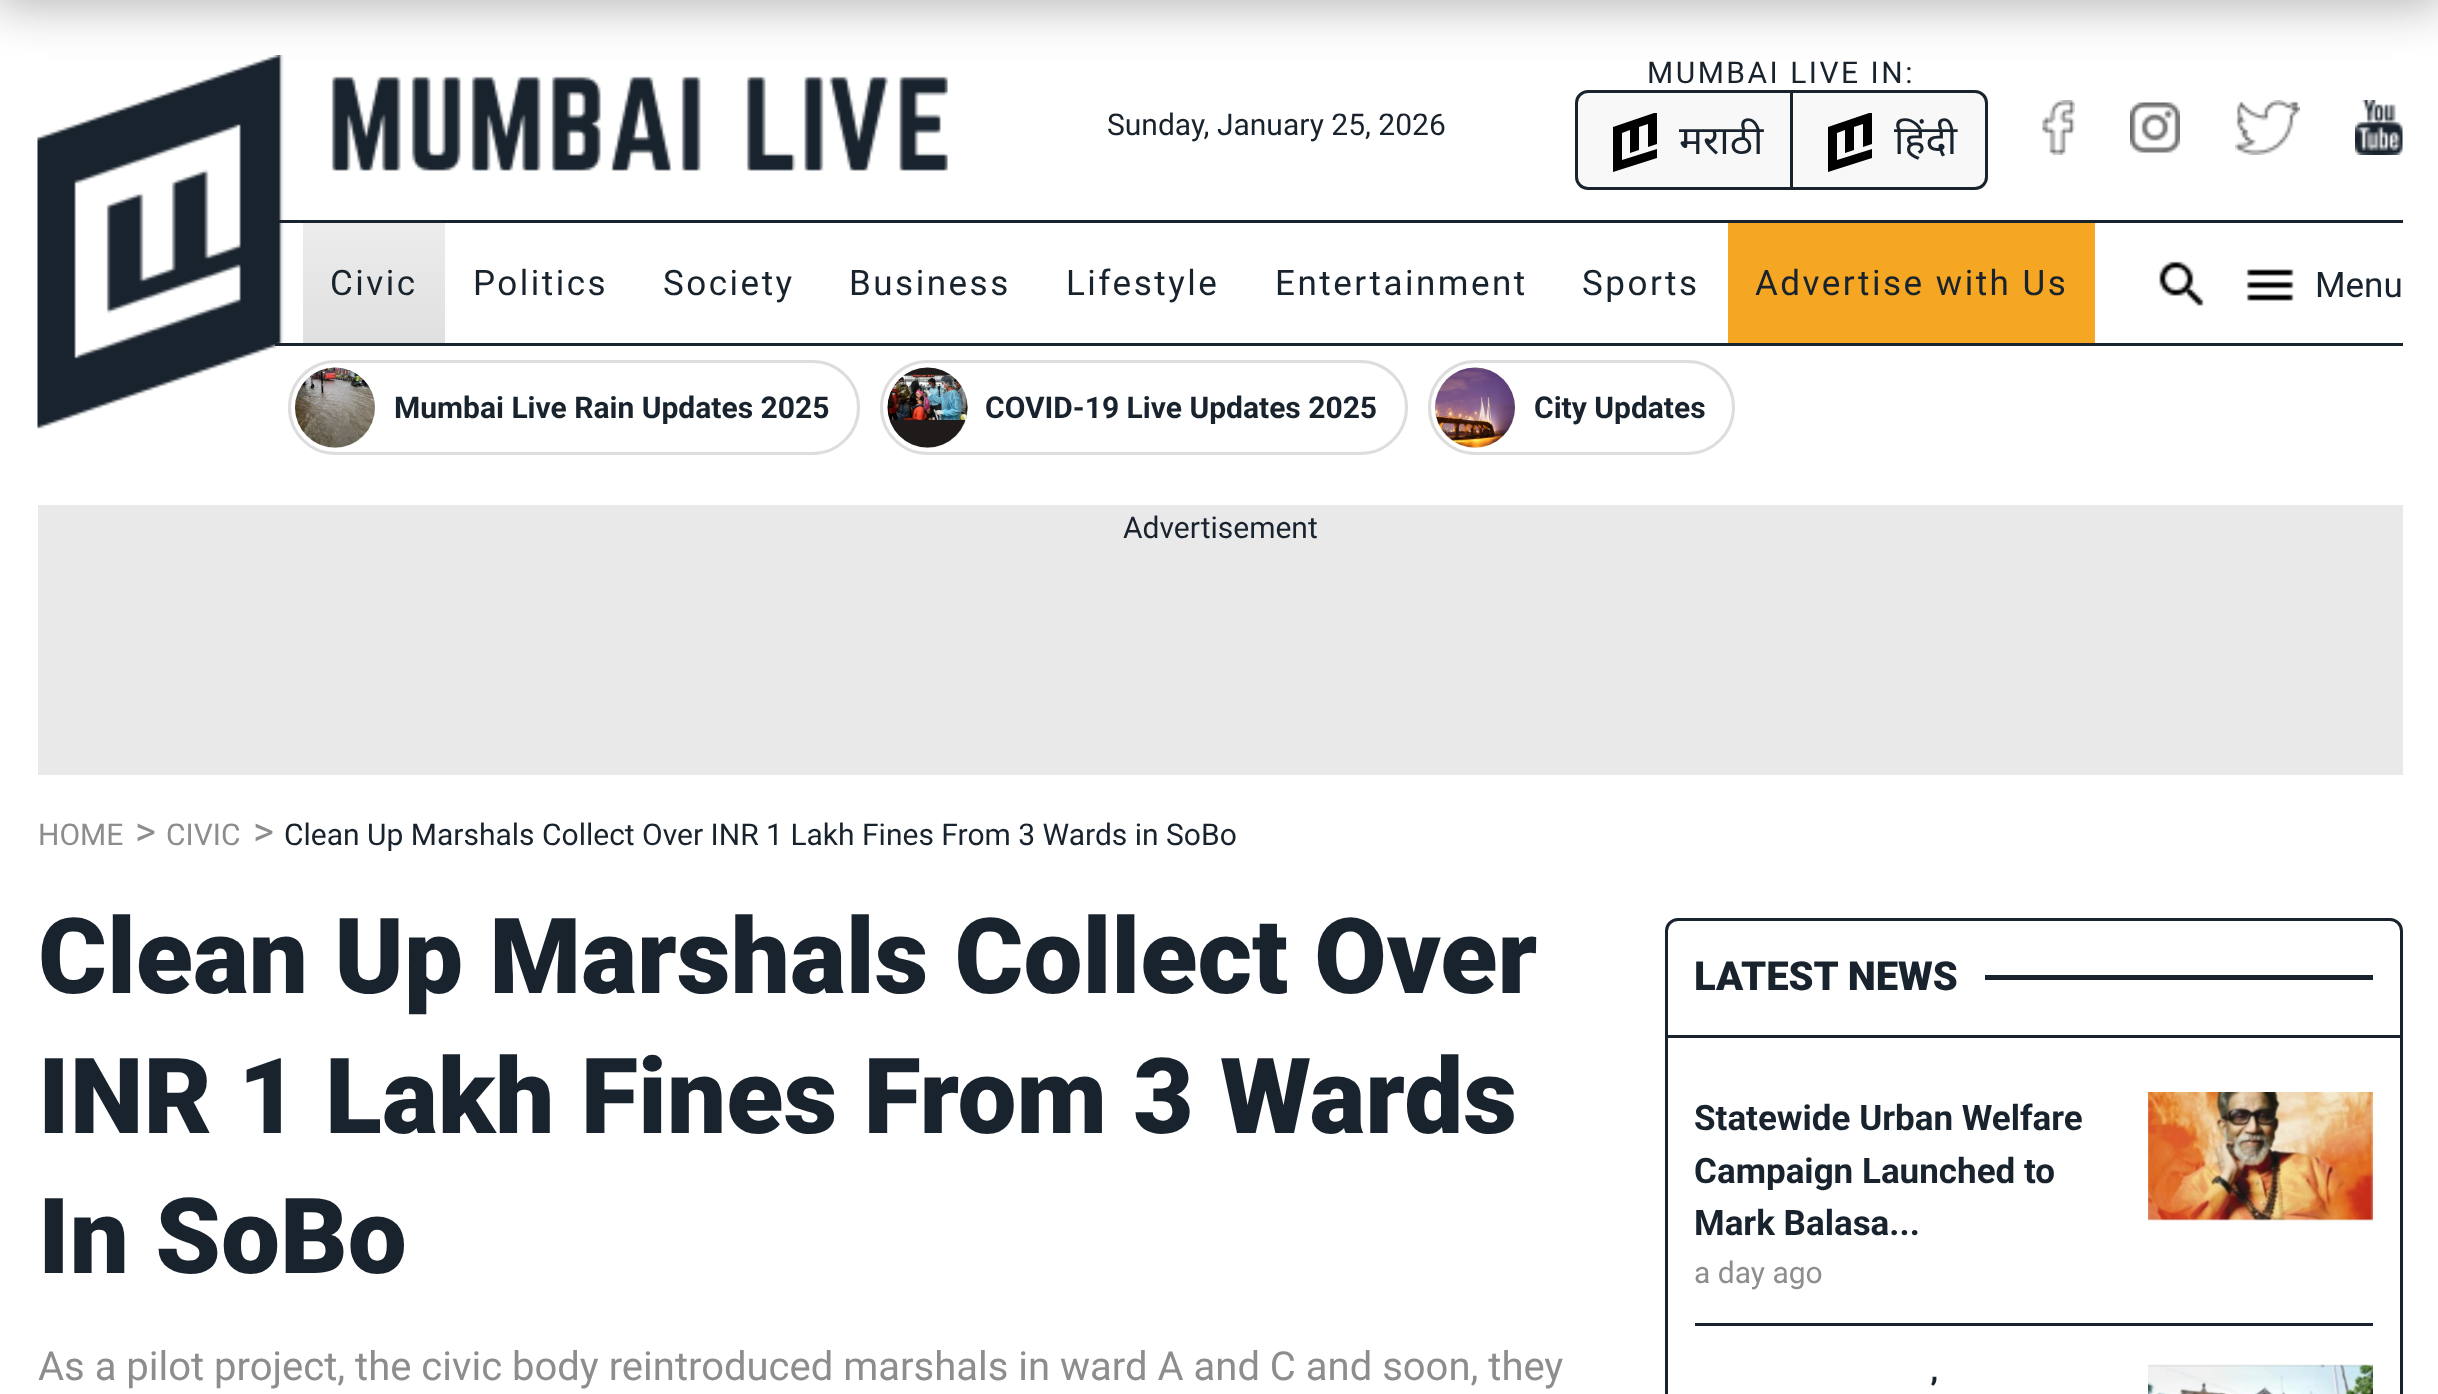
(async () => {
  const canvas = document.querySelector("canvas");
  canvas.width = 2438;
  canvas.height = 1394;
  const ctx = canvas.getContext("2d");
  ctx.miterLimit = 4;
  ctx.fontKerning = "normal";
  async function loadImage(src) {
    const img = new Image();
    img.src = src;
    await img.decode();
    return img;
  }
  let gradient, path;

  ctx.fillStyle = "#ffffff";
  ctx.fillRect(0, 0, 2438, 1394);
  ctx.drawImage(await loadImage("img/1.png"), 37, 55, 911, 374);
  ctx.fillStyle = "rgba(0, 0, 0, 0.3)";
  ctx.filter = "blur(25px)";
  ctx.beginPath();
  ctx.rect(-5, -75, 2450, 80);
  ctx.fill();
  ctx.filter = "none";
  ctx.fillStyle = "#f8f8f8";
  ctx.beginPath();
  ctx.roundRect(1576.5, 91.5, 410, 97, 11.5);
  ctx.fill();
  ctx.strokeStyle = "#19232d";
  ctx.lineWidth = 3;
  ctx.stroke();
  ctx.fillStyle = "#19232d";
  ctx.fillRect(1790, 93, 3, 97);
  ctx.save();
  ctx.beginPath();
  ctx.rect(1605, 113, 60, 60);
  ctx.clip();
  ctx.fillStyle = "#000000";
  path = new Path2D("M1622 160V133L1630 130V153L1639 150V127L1648 124V147L1657 144V112L1613 127V172L1657 158V149Z");
  ctx.fill(path, "evenodd");
  ctx.restore();
  ctx.save();
  ctx.beginPath();
  ctx.rect(1820, 113, 60, 60);
  ctx.clip();
  ctx.fillStyle = "#000000";
  path = new Path2D("M1837 160V133L1845 130V153L1854 150V127L1863 124V147L1872 144V112L1828 127V172L1872 158V149Z");
  ctx.fill(path, "evenodd");
  ctx.restore();
  ctx.drawImage(await loadImage("img/2.png"), 2042, 100, 33, 55);
  ctx.drawImage(await loadImage("img/3.png"), 2130, 102, 50, 51);
  ctx.drawImage(await loadImage("img/4.png"), 2235, 100, 65, 55);
  ctx.drawImage(await loadImage("img/5.png"), 2355, 100, 48, 55);
  ctx.fillRect(275, 220, 2128, 3);
  ctx.fillRect(275, 343, 2128, 3);
  gradient = ctx.createLinearGradient(374, 223, 374, 343);
  gradient.addColorStop(0, "#ececec");
  gradient.addColorStop(1, "#e0e0e0");
  ctx.fillStyle = gradient;
  ctx.fillRect(303, 223, 142, 120);
  ctx.fillStyle = "#f5a623";
  ctx.fillRect(1728, 223, 367, 120);
  ctx.drawImage(await loadImage("img/6.png"), 2159, 261, 45, 45);
  ctx.drawImage(await loadImage("img/7.png"), 2246, 269, 48, 32);
  ctx.beginPath();
  ctx.roundRect(289.5, 361.5, 569, 92, 46);
  ctx.strokeStyle = "#dddddd";
  ctx.stroke();
  ctx.fillStyle = "#dddddd";
  ctx.beginPath();
  ctx.arc(335, 408, 40, 0, Math.PI * 2);
  ctx.fill();
  ctx.drawImage(await loadImage("img/8.png"), 295, 367, 80, 81);
  ctx.beginPath();
  ctx.roundRect(881.5, 361.5, 525, 92, 46);
  ctx.stroke();
  ctx.beginPath();
  ctx.arc(928, 408, 40, 0, Math.PI * 2);
  ctx.fill();
  ctx.drawImage(await loadImage("img/9.png"), 887, 367, 81, 81);
  ctx.beginPath();
  ctx.roundRect(1429.5, 361.5, 304, 92, 46);
  ctx.stroke();
  ctx.beginPath();
  ctx.arc(1475, 408, 40, 0, Math.PI * 2);
  ctx.fill();
  ctx.drawImage(await loadImage("img/10.png"), 1435, 367, 81, 81);
  ctx.fillStyle = "#e9e9e9";
  ctx.fillRect(38, 505, 2365, 270);
  ctx.beginPath();
  ctx.roundRect(1666.5, 919.5, 735, 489, 11.5);
  ctx.strokeStyle = "#19232d";
  ctx.stroke();
  for (const [x, y, w, h, color] of [
    [1668, 1035, 732, 3, "#19232d"],
    [1985, 975, 388, 5, "#19232d"],
    [2148, 1219, 225, 1, "#e9e9e9"],
  ]) {
    ctx.fillStyle = color;
    ctx.fillRect(x, y, w, h);
  }
  ctx.drawImage(await loadImage("img/11.png"), 2148, 1092, 225, 129);
  ctx.fillStyle = "#19232d";
  ctx.fillRect(1695, 1323, 678, 3);
  ctx.fillStyle = "#e9e9e9";
  ctx.fillRect(2148, 1365, 225, 1);
  ctx.drawImage(await loadImage("img/12.png"), 2148, 1364, 225, 30);
  ctx.font = "30px Roboto";
  ctx.fillStyle = "#19232d";
  ctx.fillText("Sunday, January 25, 2026", 1107, 135);
  ctx.letterSpacing = "2.5px";
  ctx.fillText("MUMBAI LIVE IN:", 1647, 83);
  ctx.letterSpacing = "0px";
  ctx.font = "40px Noto Sans";
  ctx.fillText("मराठी", 1679, 154);
  ctx.fillText("हिंदी", 1894, 154);
  ctx.letterSpacing = "2.5px";
  ctx.font = "35px Roboto";
  for (const [text, x, y] of [
    ["Civic", 330, 295],
    ["Politics", 473, 295],
    ["Society", 663, 295],
    ["Business", 849, 295],
    ["Lifestyle", 1066, 295],
    ["Entertainment", 1275, 295],
    ["Sports", 1582, 295],
    ["Advertise with Us", 1755, 295],
  ]) {
    ctx.fillText(text, x, y);
  }
  ctx.letterSpacing = "0px";
  ctx.fillText("Menu", 2315, 297);
  ctx.font = "bold 30px Roboto";
  for (const [text, x, y] of [
    ["Mumbai Live Rain Updates 2025", 394, 418],
    ["COVID-19 Live Updates 2025", 985, 418],
    ["City Updates", 1534, 418],
  ]) {
    ctx.fillText(text, x, y);
  }
  ctx.font = "30px Roboto";
  ctx.fillText("Advertisement", 1123, 538);
  ctx.fillStyle = "#8d8d8d";
  ctx.fillText("HOME", 38, 845);
  ctx.font = "40px Roboto";
  ctx.fillText(">", 135, 845);
  ctx.font = "30px Roboto";
  ctx.fillText("CIVIC", 166, 845);
  ctx.font = "40px Roboto";
  ctx.fillText(">", 253, 845);
  ctx.font = "30px Roboto";
  ctx.fillStyle = "#19232d";
  ctx.fillText("Clean Up Marshals Collect Over INR 1 Lakh Fines From 3 Wards in SoBo", 284, 845);
  ctx.font = "900 105px Roboto";
  for (const [text, x, y] of [
    ["Clean Up Marshals Collect Over", 38, 993],
    ["INR 1 Lakh Fines From 3 Wards", 38, 1133],
    ["In SoBo", 38, 1273],
  ]) {
    ctx.fillText(text, x, y);
  }
  ctx.font = "40px Roboto";
  ctx.fillStyle = "#8d8d8d";
  ctx.fillText("As a pilot project, the civic body reintroduced marshals in ward A and C and soon, they", 38, 1380);
  ctx.font = "900 40px Roboto";
  ctx.fillStyle = "#19232d";
  ctx.fillText("LATEST NEWS", 1694, 990);
  ctx.font = "bold 35px Roboto";
  for (const [text, x, y] of [
    ["Statewide Urban Welfare", 1694, 1130],
    ["Campaign Launched to", 1694, 1183],
    ["Mark Balasa...", 1694, 1235],
  ]) {
    ctx.fillText(text, x, y);
  }
  ctx.font = "30px Roboto";
  ctx.fillStyle = "#8d8d8d";
  ctx.fillText("a day ago", 1694, 1283);
  ctx.font = "bold 35px Roboto";
  ctx.fillStyle = "#19232d";
  ctx.fillText("’", 1930, 1403);
})();
